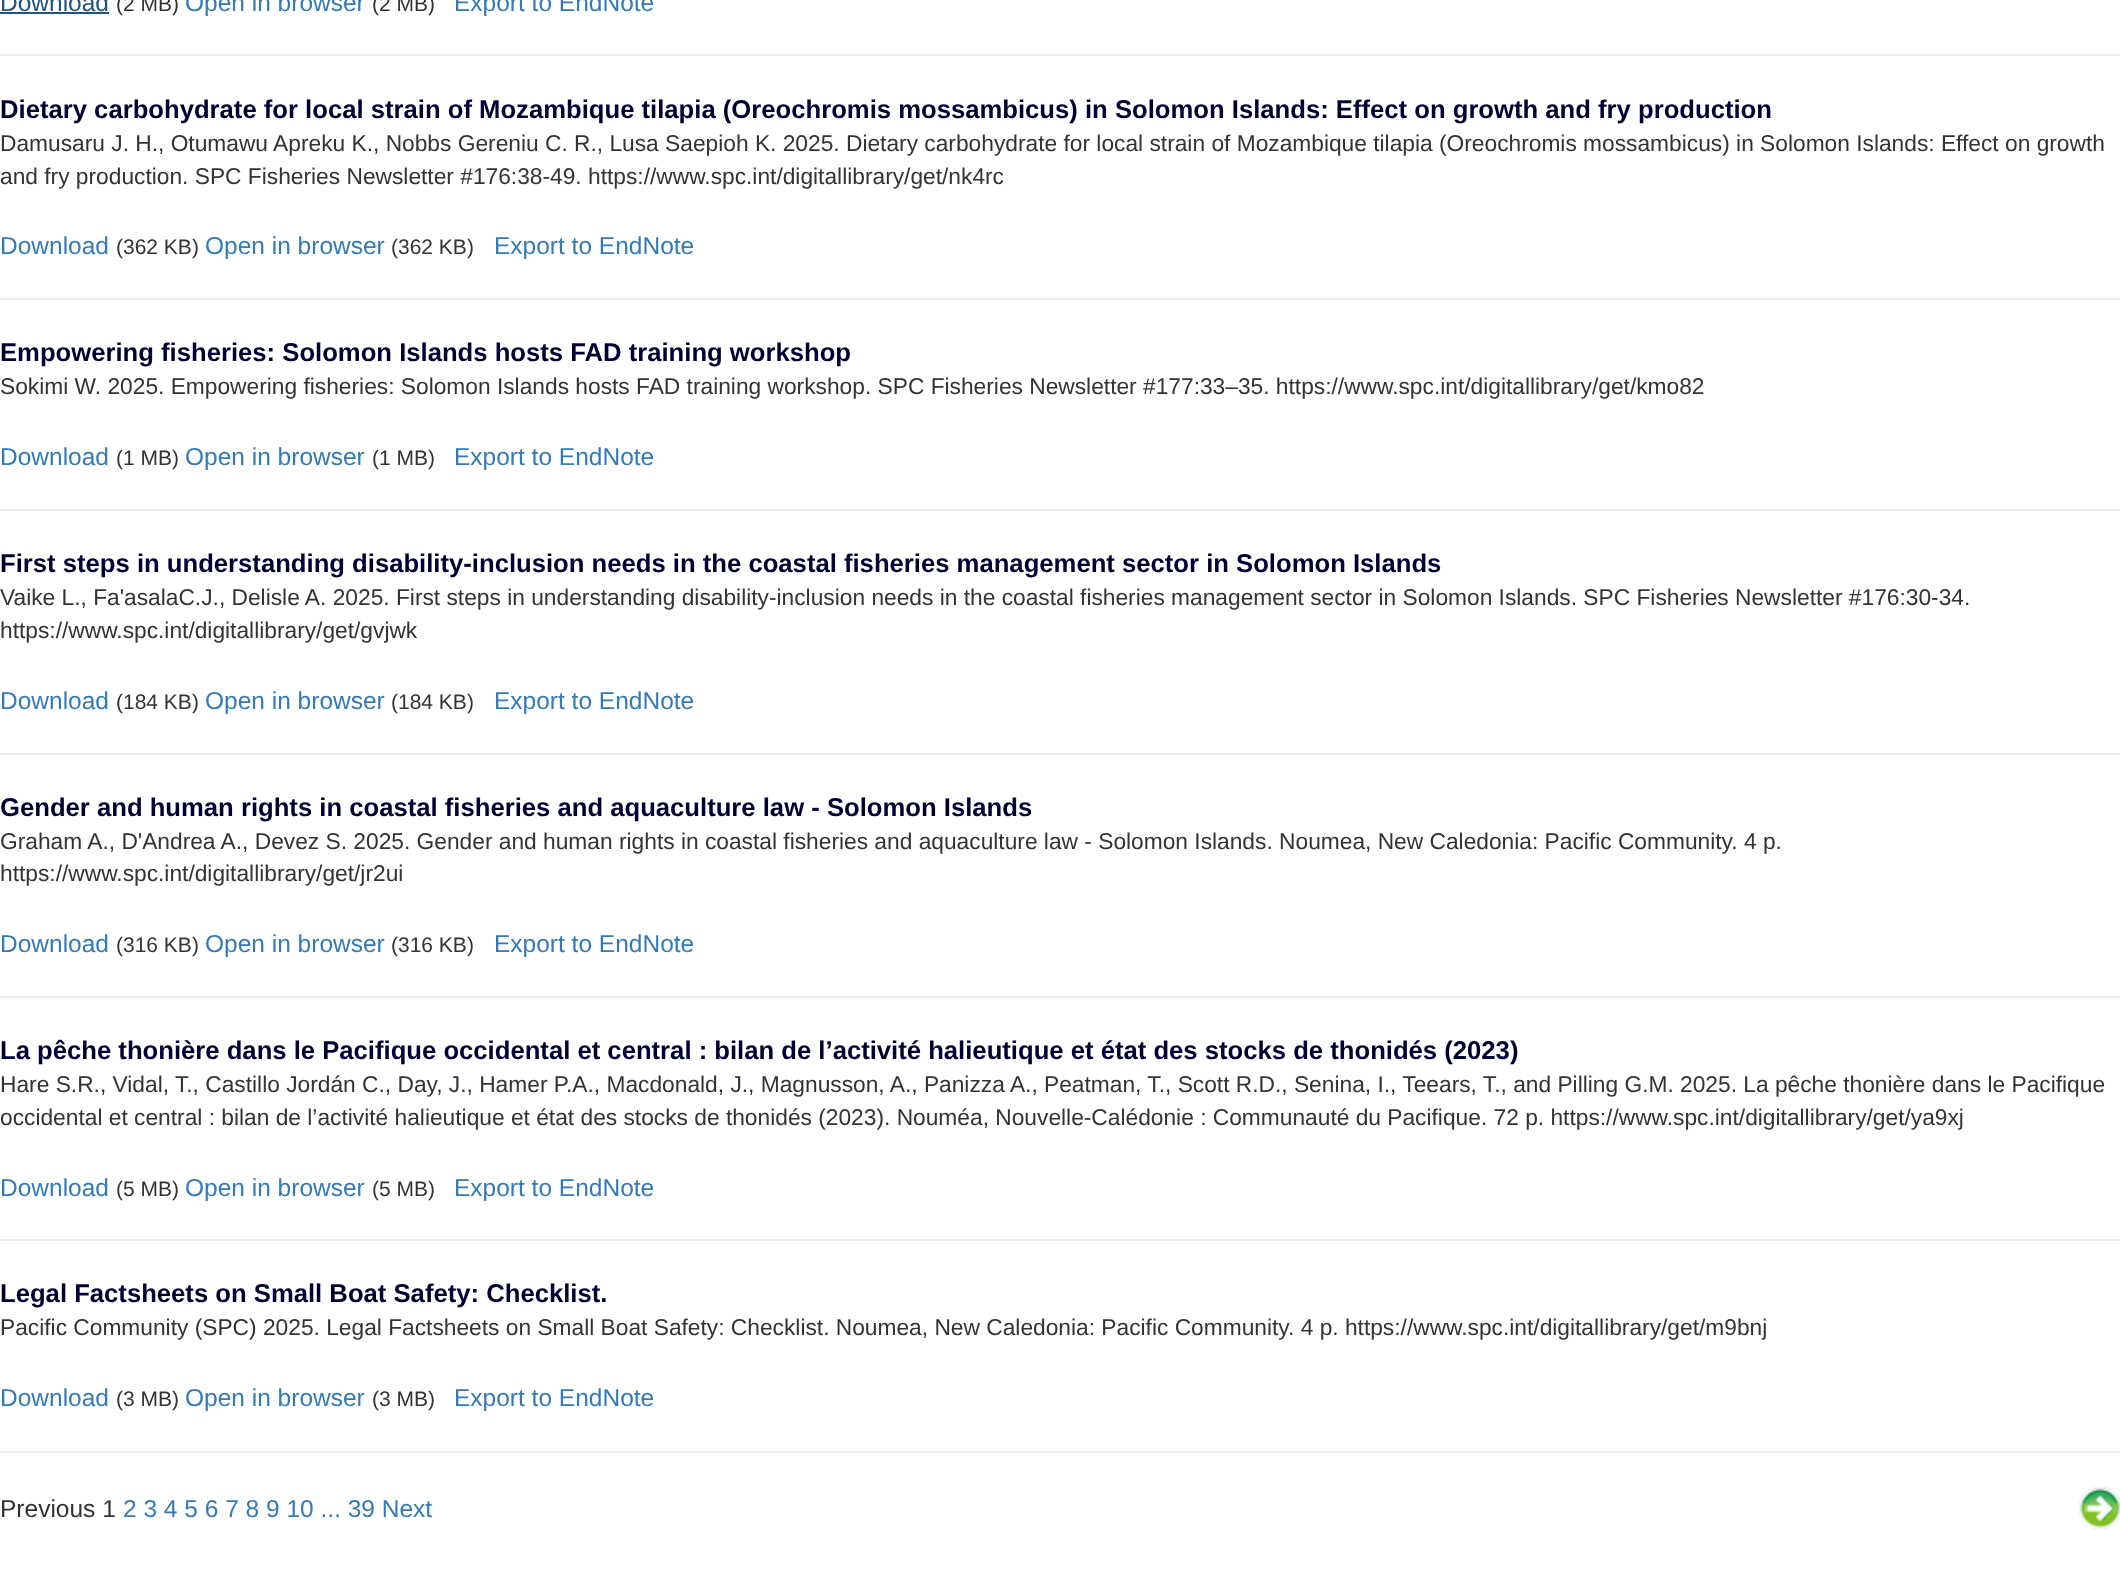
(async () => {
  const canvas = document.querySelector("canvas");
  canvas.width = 2120;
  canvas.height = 1590;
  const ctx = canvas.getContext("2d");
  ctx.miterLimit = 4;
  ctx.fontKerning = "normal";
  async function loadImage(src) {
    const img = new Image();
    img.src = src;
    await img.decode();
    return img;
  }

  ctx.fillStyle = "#ffffff";
  ctx.fillRect(0, 0, 2120, 1590);
  for (const [x, y, w, h, color] of [
    [0, 12, 109, 2, "#23527c"],
    [0, 54, 2120, 2, "#eeeeee"],
    [0, 298, 2120, 2, "#eeeeee"],
    [0, 509, 2120, 2, "#eeeeee"],
    [0, 753, 2120, 2, "#eeeeee"],
    [0, 996, 2120, 2, "#eeeeee"],
    [0, 1239, 2120, 2, "#eeeeee"],
    [0, 1451, 2120, 2, "#eeeeee"],
  ]) {
    ctx.fillStyle = color;
    ctx.fillRect(x, y, w, h);
  }
  ctx.drawImage(await loadImage("img/1.png"), 2079, 1487, 41, 43);
  ctx.font = "24.5px Liberation Sans";
  ctx.fillStyle = "#23527c";
  ctx.fillText("Download", 0, 11);
  ctx.font = "21px Liberation Sans";
  ctx.fillStyle = "#333333";
  ctx.fillText("(2 MB)", 116, 11);
  ctx.font = "24.5px Liberation Sans";
  ctx.fillStyle = "#337ab7";
  ctx.fillText("Open in browser", 185, 11);
  ctx.font = "21px Liberation Sans";
  ctx.fillStyle = "#333333";
  ctx.fillText("(2 MB)", 372, 11);
  ctx.font = "24.5px Liberation Sans";
  ctx.fillStyle = "#337ab7";
  ctx.fillText("Export to EndNote", 454, 11);
  ctx.font = "bold 25.67px Liberation Sans";
  ctx.fillStyle = "#000033";
  ctx.fillText("Dietary carbohydrate for local strain of Mozambique tilapia (Oreochromis mossambicus) in Solomon Islands: Effect on growth and fry production", 0, 118);
  ctx.font = "22.75px Liberation Sans";
  ctx.fillStyle = "#333333";
  ctx.fillText("Damusaru J. H., Otumawu Apreku K., Nobbs Gereniu C. R., Lusa Saepioh K. 2025. Dietary carbohydrate for local strain of Mozambique tilapia (Oreochromis mossambicus) in Solomon Islands: Effect on growth", 0, 151);
  ctx.fillText("and fry production. SPC Fisheries Newsletter #176:38-49. https://www.spc.int/digitallibrary/get/nk4rc", 0, 184);
  ctx.font = "24.5px Liberation Sans";
  ctx.fillStyle = "#337ab7";
  ctx.fillText("Download", 0, 254);
  ctx.font = "21px Liberation Sans";
  ctx.fillStyle = "#333333";
  ctx.fillText("(362 KB)", 116, 254);
  ctx.font = "24.5px Liberation Sans";
  ctx.fillStyle = "#337ab7";
  ctx.fillText("Open in browser", 205, 254);
  ctx.font = "21px Liberation Sans";
  ctx.fillStyle = "#333333";
  ctx.fillText("(362 KB)", 391, 254);
  ctx.font = "24.5px Liberation Sans";
  ctx.fillStyle = "#337ab7";
  ctx.fillText("Export to EndNote", 494, 254);
  ctx.font = "bold 25.67px Liberation Sans";
  ctx.fillStyle = "#000033";
  ctx.fillText("Empowering fisheries: Solomon Islands hosts FAD training workshop", 0, 361);
  ctx.font = "22.75px Liberation Sans";
  ctx.fillStyle = "#333333";
  ctx.fillText("Sokimi W. 2025. Empowering fisheries: Solomon Islands hosts FAD training workshop. SPC Fisheries Newsletter #177:33–35. https://www.spc.int/digitallibrary/get/kmo82", 0, 394);
  ctx.font = "24.5px Liberation Sans";
  ctx.fillStyle = "#337ab7";
  ctx.fillText("Download", 0, 465);
  ctx.font = "21px Liberation Sans";
  ctx.fillStyle = "#333333";
  ctx.fillText("(1 MB)", 116, 465);
  ctx.font = "24.5px Liberation Sans";
  ctx.fillStyle = "#337ab7";
  ctx.fillText("Open in browser", 185, 465);
  ctx.font = "21px Liberation Sans";
  ctx.fillStyle = "#333333";
  ctx.fillText("(1 MB)", 372, 465);
  ctx.font = "24.5px Liberation Sans";
  ctx.fillStyle = "#337ab7";
  ctx.fillText("Export to EndNote", 454, 465);
  ctx.font = "bold 25.67px Liberation Sans";
  ctx.fillStyle = "#000033";
  ctx.fillText("First steps in understanding disability-inclusion needs in the coastal fisheries management sector in Solomon Islands", 0, 572);
  ctx.font = "22.75px Liberation Sans";
  ctx.fillStyle = "#333333";
  ctx.fillText("Vaike L., Fa'asalaC.J., Delisle A. 2025. First steps in understanding disability-inclusion needs in the coastal fisheries management sector in Solomon Islands. SPC Fisheries Newsletter #176:30-34.", 0, 605);
  ctx.fillText("https://www.spc.int/digitallibrary/get/gvjwk", 0, 638);
  ctx.font = "24.5px Liberation Sans";
  ctx.fillStyle = "#337ab7";
  ctx.fillText("Download", 0, 709);
  ctx.font = "21px Liberation Sans";
  ctx.fillStyle = "#333333";
  ctx.fillText("(184 KB)", 116, 709);
  ctx.font = "24.5px Liberation Sans";
  ctx.fillStyle = "#337ab7";
  ctx.fillText("Open in browser", 205, 709);
  ctx.font = "21px Liberation Sans";
  ctx.fillStyle = "#333333";
  ctx.fillText("(184 KB)", 391, 709);
  ctx.font = "24.5px Liberation Sans";
  ctx.fillStyle = "#337ab7";
  ctx.fillText("Export to EndNote", 494, 709);
  ctx.font = "bold 25.67px Liberation Sans";
  ctx.fillStyle = "#000033";
  ctx.fillText("Gender and human rights in coastal fisheries and aquaculture law - Solomon Islands", 0, 816);
  ctx.font = "22.75px Liberation Sans";
  ctx.fillStyle = "#333333";
  ctx.fillText("Graham A., D'Andrea A., Devez S. 2025. Gender and human rights in coastal fisheries and aquaculture law - Solomon Islands. Noumea, New Caledonia: Pacific Community. 4 p.", 0, 849);
  ctx.fillText("https://www.spc.int/digitallibrary/get/jr2ui", 0, 881);
  ctx.font = "24.5px Liberation Sans";
  ctx.fillStyle = "#337ab7";
  ctx.fillText("Download", 0, 952);
  ctx.font = "21px Liberation Sans";
  ctx.fillStyle = "#333333";
  ctx.fillText("(316 KB)", 116, 952);
  ctx.font = "24.5px Liberation Sans";
  ctx.fillStyle = "#337ab7";
  ctx.fillText("Open in browser", 205, 952);
  ctx.font = "21px Liberation Sans";
  ctx.fillStyle = "#333333";
  ctx.fillText("(316 KB)", 391, 952);
  ctx.font = "24.5px Liberation Sans";
  ctx.fillStyle = "#337ab7";
  ctx.fillText("Export to EndNote", 494, 952);
  ctx.font = "bold 25.67px Liberation Sans";
  ctx.fillStyle = "#000033";
  ctx.fillText("La pêche thonière dans le Pacifique occidental et central : bilan de l’activité halieutique et état des stocks de thonidés (2023)", 0, 1059);
  ctx.font = "22.75px Liberation Sans";
  ctx.fillStyle = "#333333";
  ctx.fillText("Hare S.R., Vidal, T., Castillo Jordán C., Day, J., Hamer P.A., Macdonald, J., Magnusson, A., Panizza A., Peatman, T., Scott R.D., Senina, I., Teears, T., and Pilling G.M. 2025. La pêche thonière dans le Pacifique", 0, 1092);
  ctx.fillText("occidental et central : bilan de l’activité halieutique et état des stocks de thonidés (2023). Nouméa, Nouvelle-Calédonie : Communauté du Pacifique. 72 p. https://www.spc.int/digitallibrary/get/ya9xj", 0, 1125);
  ctx.font = "24.5px Liberation Sans";
  ctx.fillStyle = "#337ab7";
  ctx.fillText("Download", 0, 1196);
  ctx.font = "21px Liberation Sans";
  ctx.fillStyle = "#333333";
  ctx.fillText("(5 MB)", 116, 1196);
  ctx.font = "24.5px Liberation Sans";
  ctx.fillStyle = "#337ab7";
  ctx.fillText("Open in browser", 185, 1196);
  ctx.font = "21px Liberation Sans";
  ctx.fillStyle = "#333333";
  ctx.fillText("(5 MB)", 372, 1196);
  ctx.font = "24.5px Liberation Sans";
  ctx.fillStyle = "#337ab7";
  ctx.fillText("Export to EndNote", 454, 1196);
  ctx.font = "bold 25.67px Liberation Sans";
  ctx.fillStyle = "#000033";
  ctx.fillText("Legal Factsheets on Small Boat Safety: Checklist.", 0, 1302);
  ctx.font = "22.75px Liberation Sans";
  ctx.fillStyle = "#333333";
  ctx.fillText("Pacific Community (SPC) 2025. Legal Factsheets on Small Boat Safety: Checklist. Noumea, New Caledonia: Pacific Community. 4 p. https://www.spc.int/digitallibrary/get/m9bnj", 0, 1335);
  ctx.font = "24.5px Liberation Sans";
  ctx.fillStyle = "#337ab7";
  ctx.fillText("Download", 0, 1406);
  ctx.font = "21px Liberation Sans";
  ctx.fillStyle = "#333333";
  ctx.fillText("(3 MB)", 116, 1406);
  ctx.font = "24.5px Liberation Sans";
  ctx.fillStyle = "#337ab7";
  ctx.fillText("Open in browser", 185, 1406);
  ctx.font = "21px Liberation Sans";
  ctx.fillStyle = "#333333";
  ctx.fillText("(3 MB)", 372, 1406);
  ctx.font = "24.5px Liberation Sans";
  ctx.fillStyle = "#337ab7";
  ctx.fillText("Export to EndNote", 454, 1406);
  ctx.fillStyle = "#333333";
  ctx.fillText("Previous 1", 0, 1517);
  ctx.fillStyle = "#337ab7";
  ctx.fillText("2 3 4 5 6 7 8 9 10 ... 39 Next", 123, 1517);
})();
